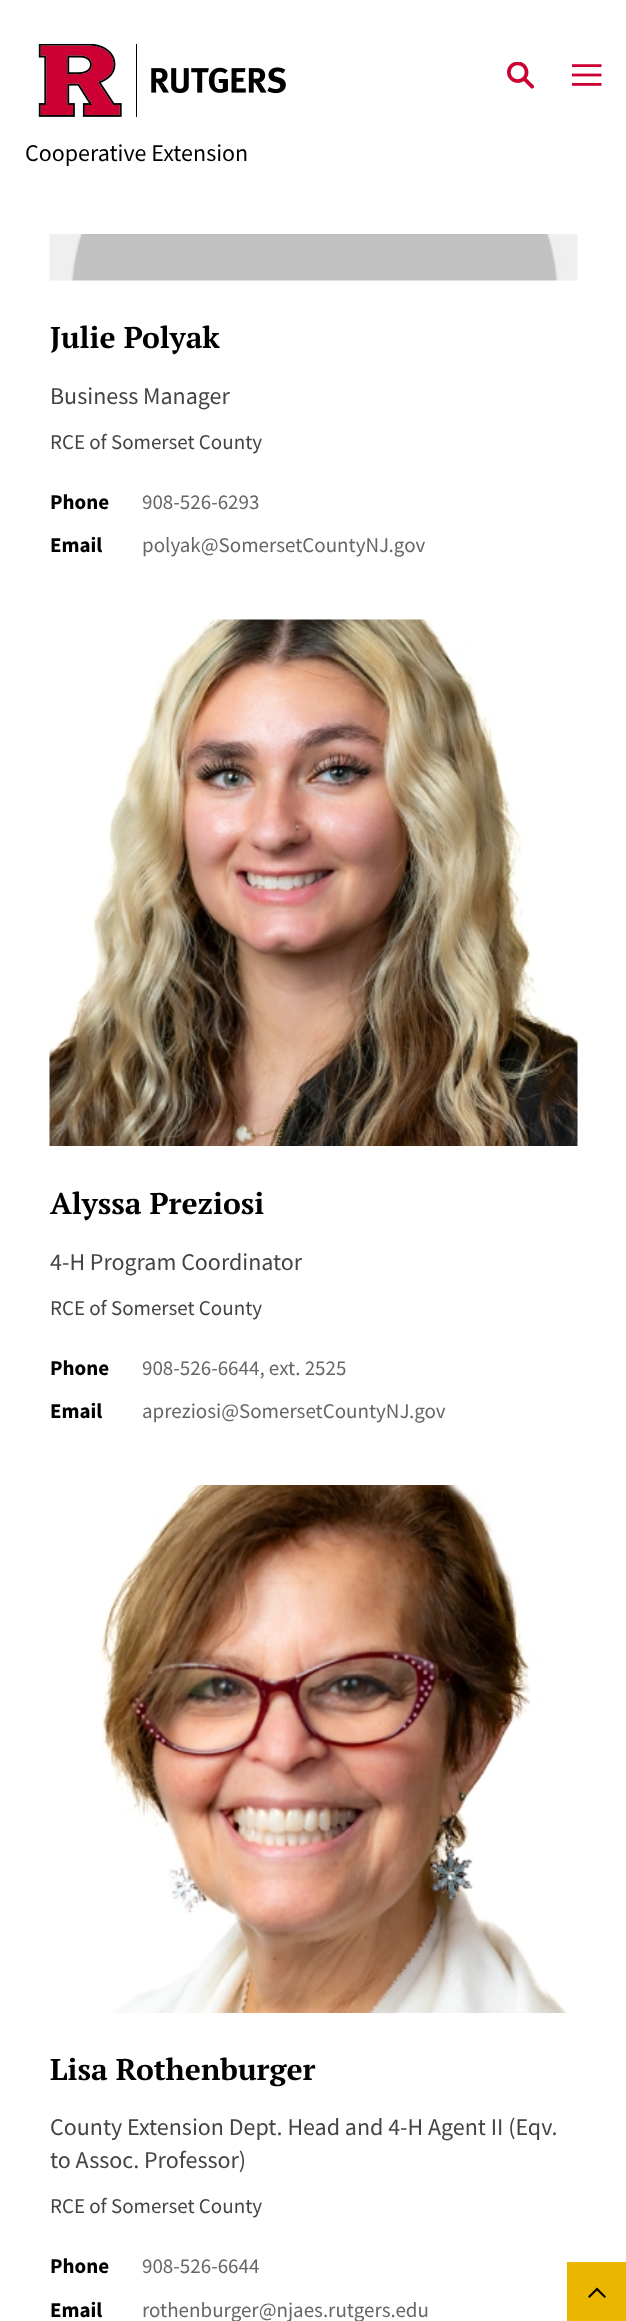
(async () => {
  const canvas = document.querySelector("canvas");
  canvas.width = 626;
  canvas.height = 2321;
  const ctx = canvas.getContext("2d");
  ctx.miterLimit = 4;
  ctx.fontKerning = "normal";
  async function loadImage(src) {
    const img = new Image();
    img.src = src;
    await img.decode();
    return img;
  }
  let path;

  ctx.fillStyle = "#ffffff";
  ctx.fillRect(0, 0, 626, 2321);
  ctx.drawImage(await loadImage("img/1.png"), 507, 62, 27, 27);
  ctx.drawImage(await loadImage("img/2.png"), 572, 64, 30, 22);
  ctx.drawImage(await loadImage("img/3.png"), 38, 44, 248, 73);
  ctx.drawImage(await loadImage("img/4.png"), 49, 234, 529, 47);
  ctx.drawImage(await loadImage("img/5.png"), 49, 619, 529, 527);
  ctx.drawImage(await loadImage("img/6.png"), 100, 1485, 468, 528);
  ctx.fillStyle = "#ebb600";
  ctx.fillRect(567, 2262, 59, 59);
  ctx.fillStyle = "#000000";
  path = new Path2D("M589.5 2298L588 2296.5L597 2287.5L606 2296.5L604.5 2298L597 2290.5Z");
  ctx.fill(path);
  ctx.font = "24px Source Sans Pro";
  ctx.fillText("Cooperative Extension", 25, 161);
  ctx.font = "bold 30px PT Serif";
  ctx.fillText("Julie Polyak", 50, 348);
  ctx.font = "24px Source Sans Pro";
  ctx.fillStyle = "#444444";
  ctx.fillText("Business Manager", 50, 404);
  ctx.font = "21px Source Sans Pro";
  ctx.fillText("RCE of Somerset County", 50, 449);
  ctx.font = "bold 21px Source Sans Pro";
  ctx.fillStyle = "#000000";
  ctx.fillText("Phone", 50, 509);
  ctx.font = "21px Source Sans Pro";
  ctx.fillStyle = "#666666";
  ctx.fillText("908-526-6293", 142, 509);
  ctx.font = "bold 21px Source Sans Pro";
  ctx.fillStyle = "#000000";
  ctx.fillText("Email", 50, 552);
  ctx.font = "21px Source Sans Pro";
  ctx.fillStyle = "#666666";
  ctx.fillText("polyak@SomersetCountyNJ.gov", 142, 552);
  ctx.font = "bold 30px PT Serif";
  ctx.fillStyle = "#000000";
  ctx.fillText("Alyssa Preziosi", 50, 1214);
  ctx.font = "24px Source Sans Pro";
  ctx.fillStyle = "#444444";
  ctx.fillText("4-H Program Coordinator", 50, 1270);
  ctx.font = "21px Source Sans Pro";
  ctx.fillText("RCE of Somerset County", 50, 1315);
  ctx.font = "bold 21px Source Sans Pro";
  ctx.fillStyle = "#000000";
  ctx.fillText("Phone", 50, 1375);
  ctx.font = "21px Source Sans Pro";
  ctx.fillStyle = "#666666";
  ctx.fillText("908-526-6644, ext. 2525", 142, 1375);
  ctx.font = "bold 21px Source Sans Pro";
  ctx.fillStyle = "#000000";
  ctx.fillText("Email", 50, 1418);
  ctx.font = "21px Source Sans Pro";
  ctx.fillStyle = "#666666";
  ctx.fillText("apreziosi@SomersetCountyNJ.gov", 142, 1418);
  ctx.font = "bold 30px PT Serif";
  ctx.fillStyle = "#000000";
  ctx.fillText("Lisa Rothenburger", 50, 2080);
  ctx.font = "24px Source Sans Pro";
  ctx.fillStyle = "#444444";
  ctx.fillText("County Extension Dept. Head and 4-H Agent II (Eqv.", 50, 2135);
  ctx.fillText("to Assoc. Professor)", 50, 2168);
  ctx.font = "21px Source Sans Pro";
  ctx.fillText("RCE of Somerset County", 50, 2213);
  ctx.font = "bold 21px Source Sans Pro";
  ctx.fillStyle = "#000000";
  ctx.fillText("Phone", 50, 2273);
  ctx.font = "21px Source Sans Pro";
  ctx.fillStyle = "#666666";
  ctx.fillText("908-526-6644", 142, 2273);
  ctx.font = "bold 21px Source Sans Pro";
  ctx.fillStyle = "#000000";
  ctx.fillText("Email", 50, 2317);
  ctx.font = "21px Source Sans Pro";
  ctx.fillStyle = "#666666";
  ctx.fillText("rothenburger@njaes.rutgers.edu", 142, 2317);
})();
